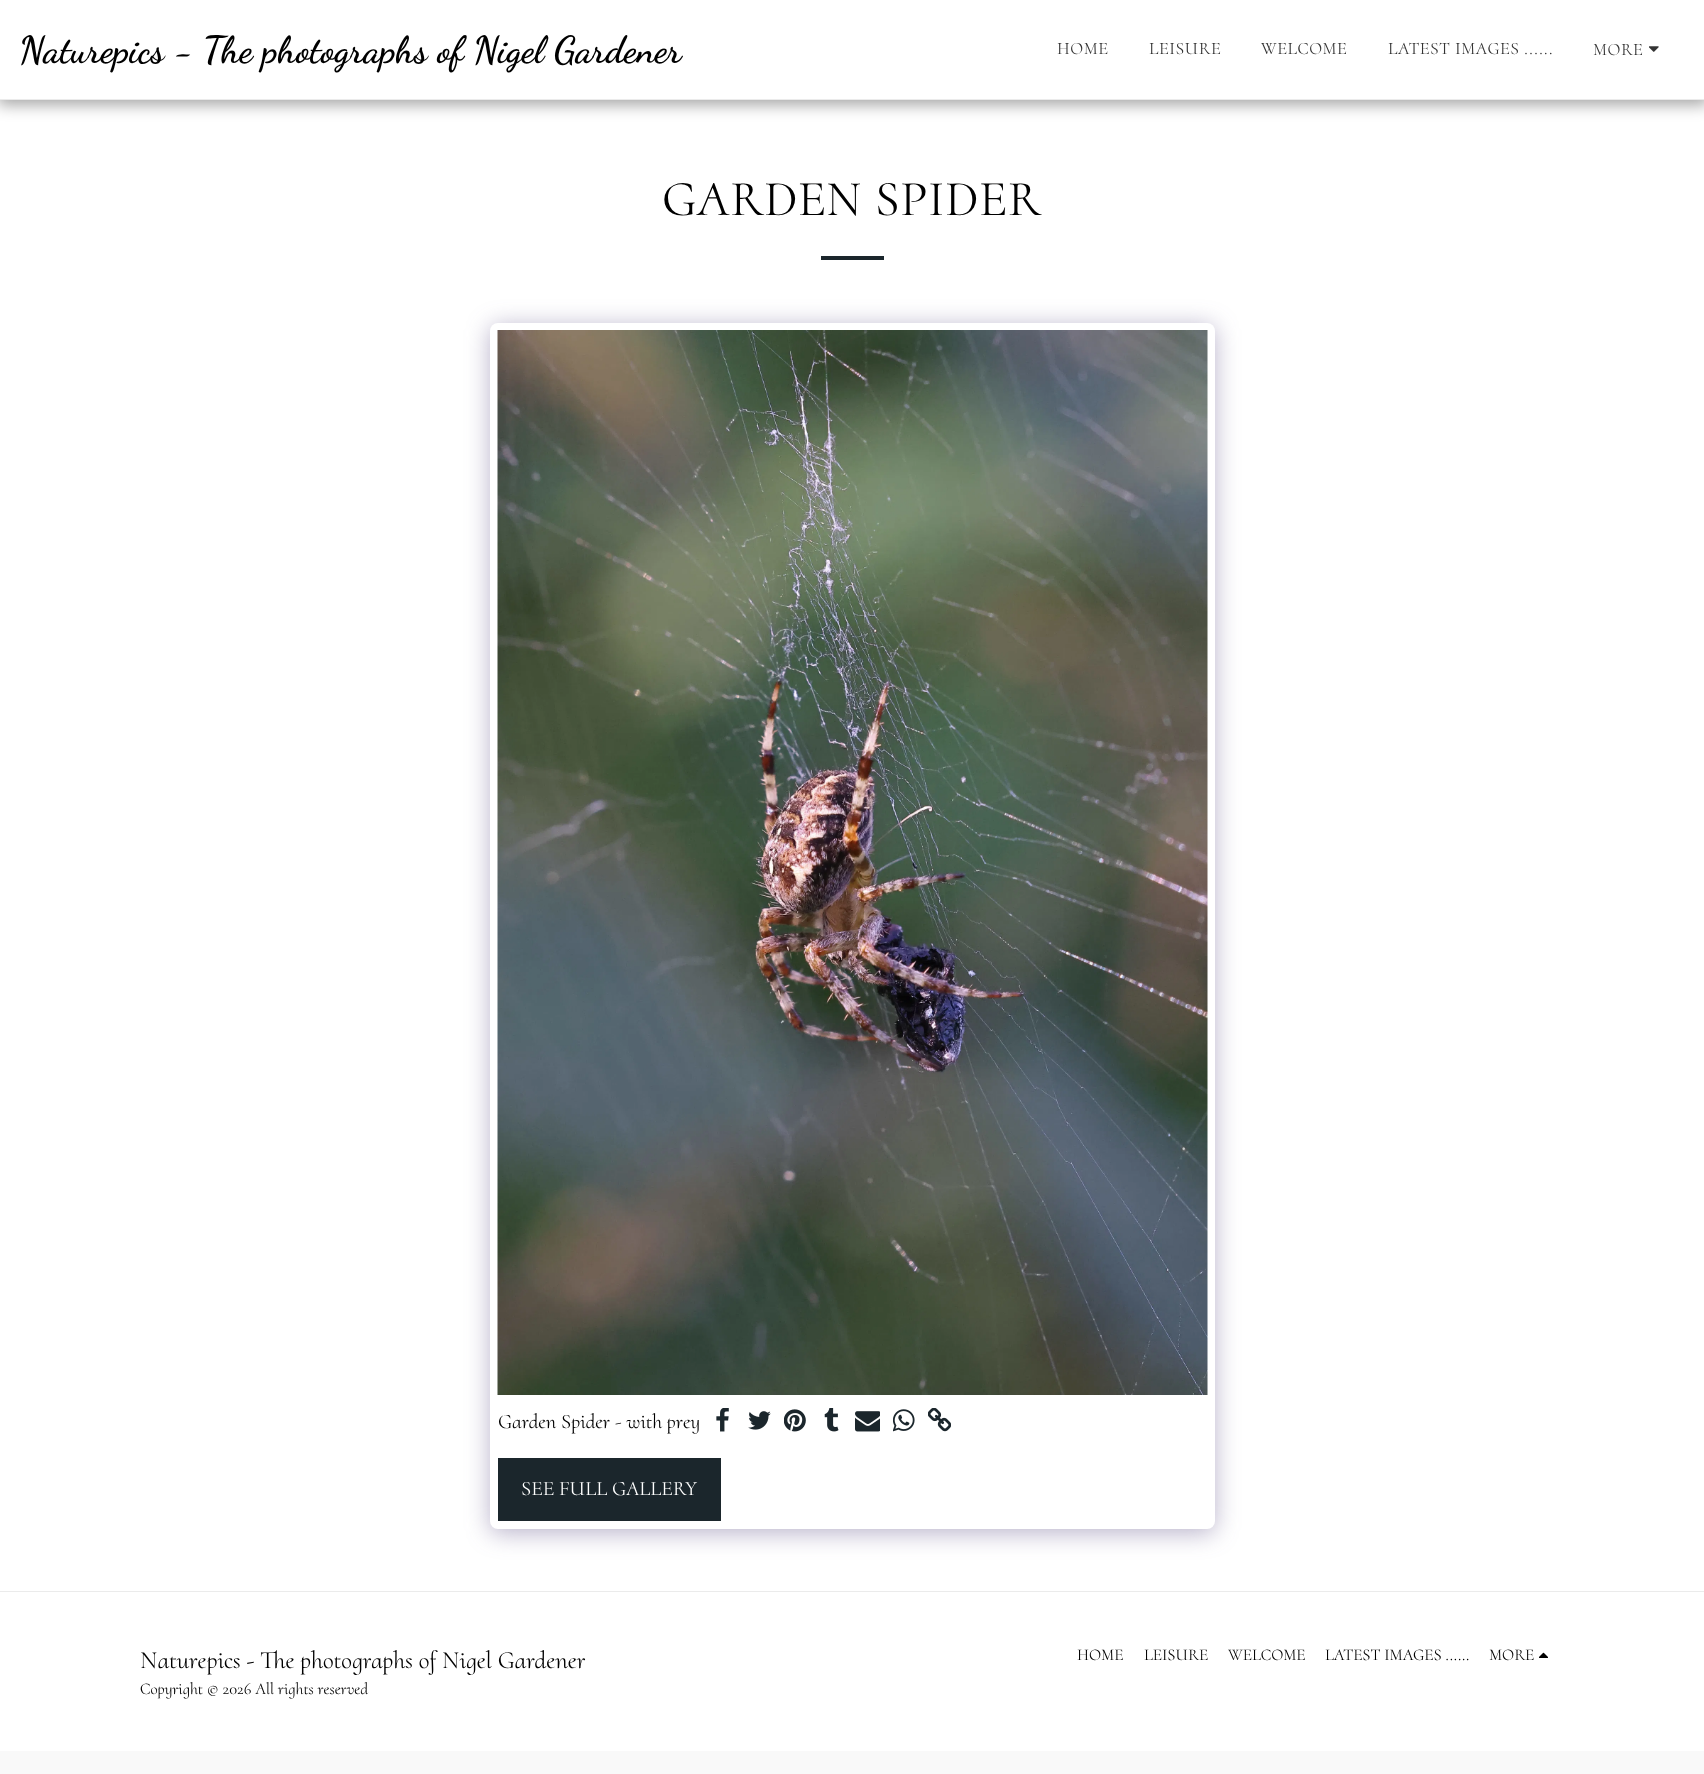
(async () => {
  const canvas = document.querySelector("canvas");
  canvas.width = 1704;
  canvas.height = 1774;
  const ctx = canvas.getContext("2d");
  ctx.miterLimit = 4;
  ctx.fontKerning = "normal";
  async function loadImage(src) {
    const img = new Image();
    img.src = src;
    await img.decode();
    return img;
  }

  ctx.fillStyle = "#f9f9f9";
  ctx.fillRect(0, 0, 1704, 1774);
  ctx.fillStyle = "#ffffff";
  ctx.fillRect(0, 100, 1704, 1491);
  ctx.fillStyle = "rgba(0, 0, 0, 0.35)";
  ctx.filter = "blur(7.5px)";
  ctx.beginPath();
  ctx.rect(-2, 0, 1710, 105);
  ctx.fill();
  ctx.filter = "none";
  ctx.fillStyle = "#ffffff";
  ctx.fillRect(0, 0, 1704, 99);
  ctx.fillStyle = "#ebebeb";
  ctx.fillRect(0, 99, 1704, 1);
  ctx.drawImage(await loadImage("img/1.png"), 1649, 46, 10, 6);
  ctx.fillStyle = "#1b262c";
  ctx.fillRect(821, 256, 63, 4);
  ctx.fillStyle = "rgba(77, 63, 122, 0.4)";
  ctx.filter = "blur(12.5px)";
  ctx.beginPath();
  ctx.roundRect(490, 326, 725, 1207, 8);
  ctx.fill();
  ctx.filter = "none";
  ctx.fillStyle = "#ffffff";
  ctx.beginPath();
  ctx.roundRect(490, 323, 725, 1206, 8);
  ctx.fill();
  ctx.drawImage(await loadImage("img/2.png"), 497, 330, 711, 1065);
  ctx.drawImage(await loadImage("img/3.png"), 716, 1408, 13, 24);
  ctx.drawImage(await loadImage("img/4.png"), 748, 1411, 23, 19);
  ctx.drawImage(await loadImage("img/5.png"), 784, 1409, 22, 23);
  ctx.drawImage(await loadImage("img/6.png"), 824, 1408, 15, 24);
  ctx.drawImage(await loadImage("img/7.png"), 855, 1411, 25, 21);
  ctx.drawImage(await loadImage("img/8.png"), 893, 1409, 22, 23);
  ctx.drawImage(await loadImage("img/9.png"), 928, 1408, 23, 24);
  for (const [x, y, w, h, color] of [
    [498, 1458, 223, 63, "#1b262c"],
    [0, 1592, 1704, 159, "#ffffff"],
    [0, 1591, 1704, 1, "#ebebeb"],
  ]) {
    ctx.fillStyle = color;
    ctx.fillRect(x, y, w, h);
  }
  ctx.drawImage(await loadImage("img/10.png"), 1539, 1652, 9, 6);
  ctx.font = "bold 37.5px Dancing Script";
  ctx.fillStyle = "#000000";
  ctx.fillText("Naturepics - The photographs of Nigel Gardener", 19, 62);
  ctx.letterSpacing = "0.6px";
  ctx.font = "17.5px Cormorant Upright";
  ctx.fillStyle = "#333333";
  for (const [text, x, y] of [
    ["HOME", 1057, 54],
    ["LEISURE", 1149, 54],
    ["WELCOME", 1261, 54],
    ["LATEST IMAGES ......", 1388, 54],
    ["MORE", 1593, 55],
  ]) {
    ctx.fillText(text, x, y);
  }
  ctx.font = "50.25px Cormorant Upright";
  ctx.fillStyle = "#000000";
  ctx.fillText("GARDEN SPIDER", 662, 215);
  ctx.letterSpacing = "0px";
  ctx.font = "20.6px Cormorant Upright";
  ctx.fillText("Garden Spider - with prey", 498, 1428);
  ctx.fillStyle = "#ffffff";
  ctx.fillText("SEE FULL GALLERY", 521, 1495);
  ctx.font = "24.75px Cormorant Upright";
  ctx.fillStyle = "#000000";
  ctx.fillText("Naturepics - The photographs of Nigel Gardener", 140, 1668);
  ctx.font = "16.5px Cormorant Upright";
  for (const [text, x, y] of [
    ["Copyright © 2026 All rights reserved", 140, 1694],
    ["HOME", 1077, 1660],
    ["LEISURE", 1144, 1660],
    ["WELCOME", 1228, 1660],
    ["LATEST IMAGES ......", 1325, 1660],
    ["MORE", 1489, 1660],
  ]) {
    ctx.fillText(text, x, y);
  }
})();
